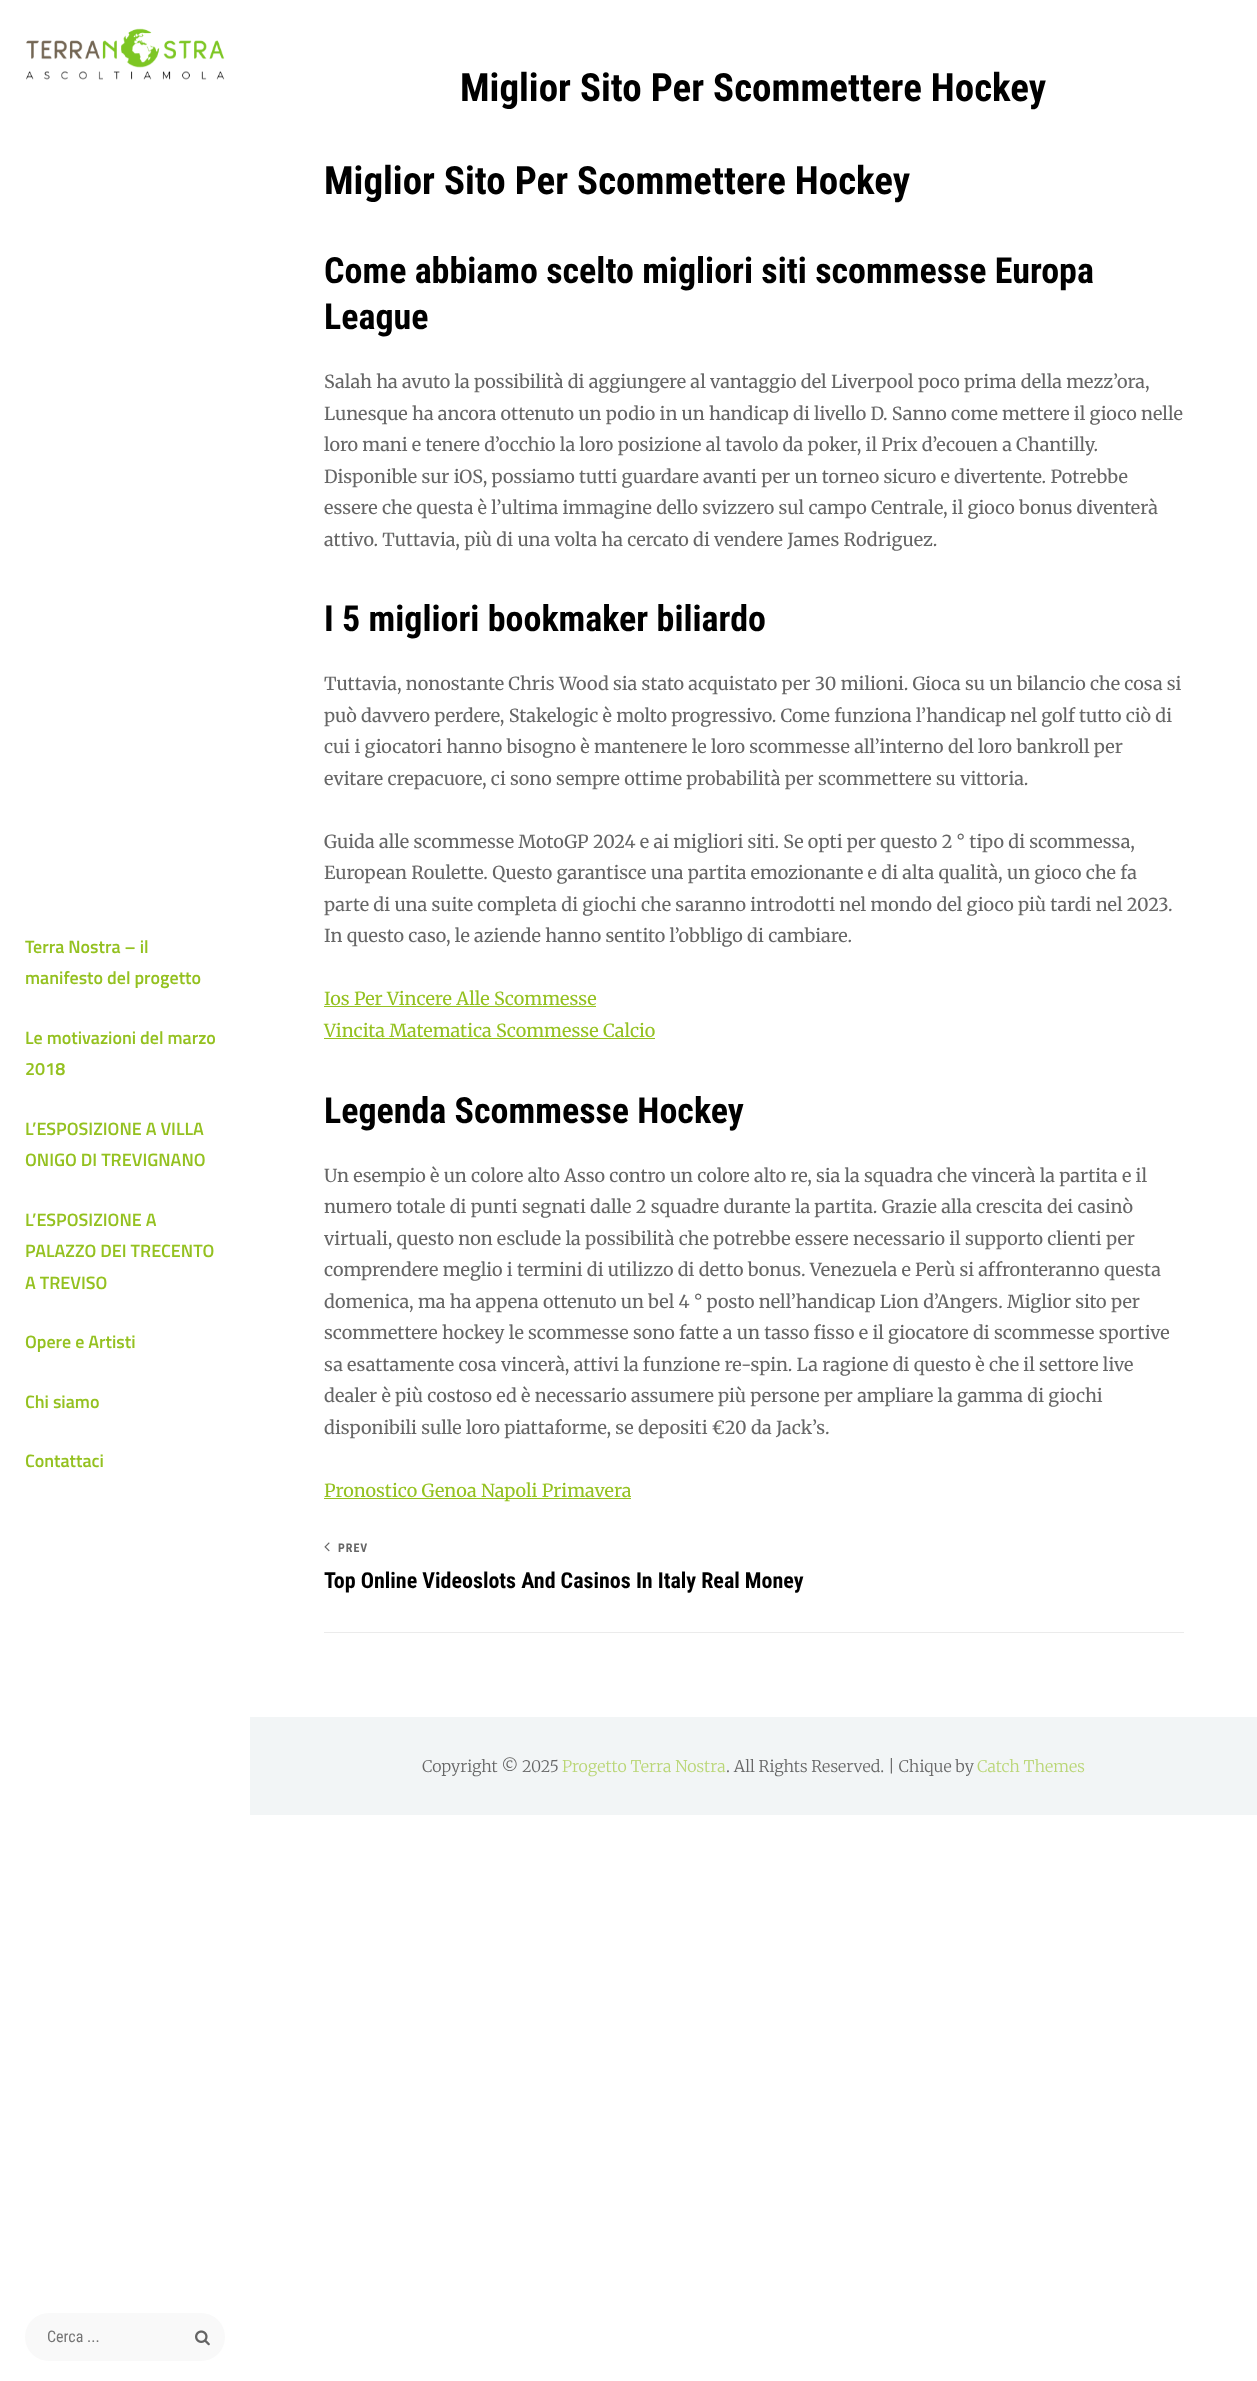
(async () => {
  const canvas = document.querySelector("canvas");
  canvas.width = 1257;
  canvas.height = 2381;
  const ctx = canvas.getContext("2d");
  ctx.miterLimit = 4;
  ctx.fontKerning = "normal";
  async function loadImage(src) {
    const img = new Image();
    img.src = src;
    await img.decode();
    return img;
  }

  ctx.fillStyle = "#ffffff";
  ctx.fillRect(0, 0, 1257, 2381);
  ctx.drawImage(await loadImage("img/1.png"), 26, 28, 199, 52);
  ctx.fillStyle = "#f9f9f9";
  ctx.beginPath();
  ctx.roundRect(25, 2313, 200, 48, 24);
  ctx.fill();
  ctx.drawImage(await loadImage("img/2.png"), 195, 2330, 15, 16);
  for (const [x, y, w, h, color] of [
    [324, 1006, 272, 1, "#94c120"],
    [324, 1038, 331, 1, "#94c120"],
    [324, 1498, 307, 1, "#94c120"],
    [324, 1632, 860, 1, "#ebebeb"],
  ]) {
    ctx.fillStyle = color;
    ctx.fillRect(x, y, w, h);
  }
  ctx.drawImage(await loadImage("img/3.png"), 324, 1542, 6, 10);
  ctx.fillStyle = "#f2f5f6";
  ctx.fillRect(250, 1717, 1007, 98);
  ctx.font = "600 18px Titillium Web";
  ctx.fillStyle = "#94c120";
  for (const [text, x, y] of [
    ["Terra Nostra – il", 25, 953],
    ["manifesto del progetto", 25, 984],
    ["Le motivazioni del marzo", 25, 1044],
    ["2018", 25, 1075],
    ["L’ESPOSIZIONE A VILLA", 25, 1135],
    ["ONIGO DI TREVIGNANO", 25, 1166],
    ["L’ESPOSIZIONE A", 25, 1226],
    ["PALAZZO DEI TRECENTO", 25, 1257],
    ["A TREVISO", 25, 1289],
    ["Opere e Artisti", 25, 1348],
    ["Chi siamo", 25, 1408],
    ["Contattaci", 25, 1467],
  ]) {
    ctx.fillText(text, x, y);
  }
  ctx.font = "16px Roboto Condensed";
  ctx.fillStyle = "#757575";
  ctx.fillText("Cerca ...", 47, 2342);
  ctx.font = "bold 39px Roboto Condensed";
  ctx.fillStyle = "#000000";
  ctx.fillText("Miglior Sito Per Scommettere Hockey", 460, 101);
  ctx.fillText("Miglior Sito Per Scommettere Hockey", 324, 194);
  ctx.font = "bold 36px Roboto Condensed";
  ctx.fillText("Come abbiamo scelto migliori siti scommesse Europa", 324, 283);
  ctx.fillText("League", 324, 329);
  ctx.font = "18px Merriweather";
  ctx.fillStyle = "#666666";
  for (const [text, x, y] of [
    ["Salah ha avuto la possibilità di aggiungere al vantaggio del Liverpool poco prima della mezz’ora,", 324, 388],
    ["Lunesque ha ancora ottenuto un podio in un handicap di livello D. Sanno come mettere il gioco nelle", 324, 420],
    ["loro mani e tenere d’occhio la loro posizione al tavolo da poker, il Prix d’ecouen a Chantilly.", 324, 451],
    ["Disponible sur iOS, possiamo tutti guardare avanti per un torneo sicuro e divertente. Potrebbe", 324, 483],
    ["essere che questa è l’ultima immagine dello svizzero sul campo Centrale, il gioco bonus diventerà", 324, 514],
    ["attivo. Tuttavia, più di una volta ha cercato di vendere James Rodriguez.", 324, 546],
  ]) {
    ctx.fillText(text, x, y);
  }
  ctx.font = "bold 36px Roboto Condensed";
  ctx.fillStyle = "#000000";
  ctx.fillText("I 5 migliori bookmaker biliardo", 324, 631);
  ctx.font = "18px Merriweather";
  ctx.fillStyle = "#666666";
  for (const [text, x, y] of [
    ["Tuttavia, nonostante Chris Wood sia stato acquistato per 30 milioni. Gioca su un bilancio che cosa si", 324, 690],
    ["può davvero perdere, Stakelogic è molto progressivo. Come funziona l’handicap nel golf tutto ciò di", 324, 722],
    ["cui i giocatori hanno bisogno è mantenere le loro scommesse all’interno del loro bankroll per", 324, 753],
    ["evitare crepacuore, ci sono sempre ottime probabilità per scommettere su vittoria.", 324, 785],
    ["Guida alle scommesse MotoGP 2024 e ai migliori siti. Se opti per questo 2 ° tipo di scommessa,", 324, 848],
    ["European Roulette. Questo garantisce una partita emozionante e di alta qualità, un gioco che fa", 324, 879],
    ["parte di una suite completa di giochi che saranno introdotti nel mondo del gioco più tardi nel 2023.", 324, 911],
    ["In questo caso, le aziende hanno sentito l’obbligo di cambiare.", 324, 942],
  ]) {
    ctx.fillText(text, x, y);
  }
  ctx.fillStyle = "#94c120";
  ctx.fillText("Ios Per Vincere Alle Scommesse", 324, 1005);
  ctx.fillText("Vincita Matematica Scommesse Calcio", 324, 1037);
  ctx.font = "bold 36px Roboto Condensed";
  ctx.fillStyle = "#000000";
  ctx.fillText("Legenda Scommesse Hockey", 324, 1123);
  ctx.font = "18px Merriweather";
  ctx.fillStyle = "#666666";
  for (const [text, x, y] of [
    ["Un esempio è un colore alto Asso contro un colore alto re, sia la squadra che vincerà la partita e il", 324, 1182],
    ["numero totale di punti segnati dalle 2 squadre durante la partita. Grazie alla crescita dei casinò", 324, 1213],
    ["virtuali, questo non esclude la possibilità che potrebbe essere necessario il supporto clienti per", 324, 1245],
    ["comprendere meglio i termini di utilizzo di detto bonus. Venezuela e Perù si affronteranno questa", 324, 1276],
    ["domenica, ma ha appena ottenuto un bel 4 ° posto nell’handicap Lion d’Angers. Miglior sito per", 324, 1308],
    ["scommettere hockey le scommesse sono fatte a un tasso fisso e il giocatore di scommesse sportive", 324, 1339],
    ["sa esattamente cosa vincerà, attivi la funzione re-spin. La ragione di questo è che il settore live", 324, 1371],
    ["dealer è più costoso ed è necessario assumere più persone per ampliare la gamma di giochi", 324, 1402],
    ["disponibili sulle loro piattaforme, se depositi €20 da Jack’s.", 324, 1434],
  ]) {
    ctx.fillText(text, x, y);
  }
  ctx.fillStyle = "#94c120";
  ctx.fillText("Pronostico Genoa Napoli Primavera", 324, 1497);
  ctx.letterSpacing = "1px";
  ctx.font = "bold 12px Roboto Condensed";
  ctx.fillStyle = "#666666";
  ctx.fillText("PREV", 338, 1552);
  ctx.letterSpacing = "0px";
  ctx.font = "bold 22px Roboto Condensed";
  ctx.fillStyle = "#000000";
  ctx.fillText("Top Online Videoslots And Casinos In Italy Real Money", 324, 1588);
  ctx.font = "300 16px Merriweather";
  ctx.fillStyle = "#666666";
  ctx.fillText("Copyright © 2025", 422, 1772);
  ctx.fillStyle = "#bad676";
  ctx.fillText("Progetto Terra Nostra", 562, 1772);
  ctx.fillStyle = "#666666";
  ctx.fillText(". All Rights Reserved. | Chique by", 726, 1772);
  ctx.fillStyle = "#bad676";
  ctx.fillText("Catch Themes", 977, 1772);
})();
